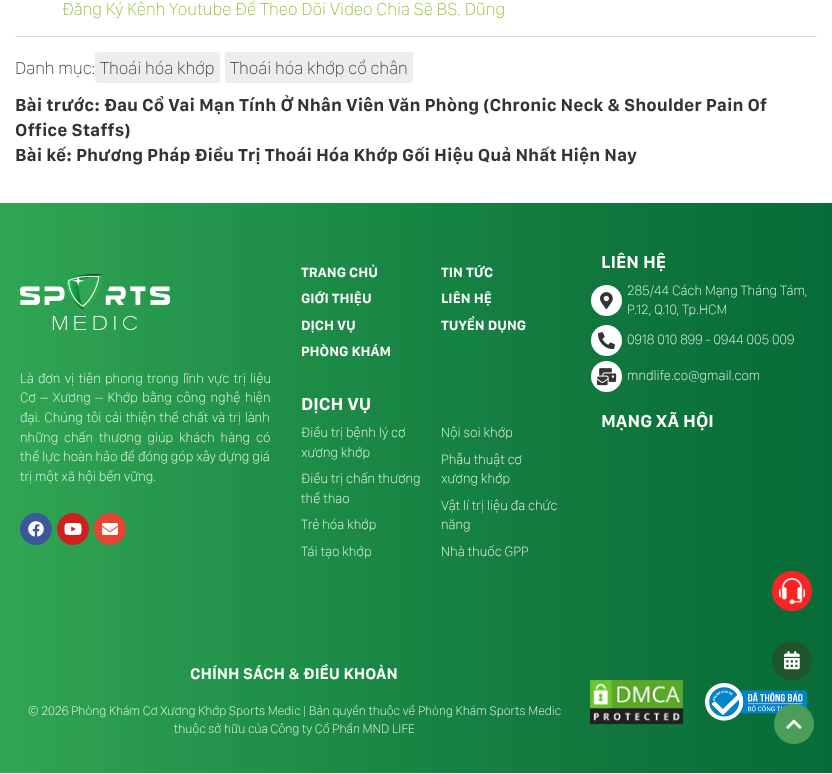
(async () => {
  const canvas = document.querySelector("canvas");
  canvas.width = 832;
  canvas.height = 774;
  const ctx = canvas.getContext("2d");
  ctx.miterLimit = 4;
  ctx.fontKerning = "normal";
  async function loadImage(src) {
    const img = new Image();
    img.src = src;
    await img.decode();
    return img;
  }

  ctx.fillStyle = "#ffffff";
  ctx.fillRect(0, 0, 832, 774);
  ctx.fillStyle = "#dddddd";
  ctx.fillRect(15, 36, 802, 1);
  ctx.fillStyle = "#ededed";
  ctx.beginPath();
  ctx.roundRect(95, 52, 125, 31, 3);
  ctx.fill();
  ctx.beginPath();
  ctx.roundRect(225, 52, 188, 31, 3);
  ctx.fill();
  ctx.drawImage(await loadImage("img/1.png"), 0, 203, 832, 570);
  ctx.drawImage(await loadImage("img/2.png"), 20, 274, 150, 56);
  ctx.fillStyle = "#3b5998";
  ctx.beginPath();
  ctx.arc(36, 529, 16, 0, Math.PI * 2);
  ctx.fill();
  ctx.drawImage(await loadImage("img/3.png"), 28, 521, 16, 16);
  ctx.fillStyle = "#cd201f";
  ctx.beginPath();
  ctx.arc(73, 529, 16, 0, Math.PI * 2);
  ctx.fill();
  ctx.drawImage(await loadImage("img/4.png"), 64, 523, 18, 12);
  ctx.fillStyle = "#ea4335";
  ctx.beginPath();
  ctx.arc(110, 529, 16, 0, Math.PI * 2);
  ctx.fill();
  ctx.drawImage(await loadImage("img/5.png"), 102, 523, 16, 12);
  ctx.fillStyle = "#ffffff";
  ctx.beginPath();
  ctx.arc(606.5, 300.5, 15.5, 0, Math.PI * 2);
  ctx.fill();
  ctx.drawImage(await loadImage("img/6.png"), 600, 292, 13, 18);
  ctx.beginPath();
  ctx.arc(606.5, 340.5, 15.5, 0, Math.PI * 2);
  ctx.fill();
  ctx.drawImage(await loadImage("img/7.png"), 598, 332, 17, 18);
  ctx.beginPath();
  ctx.arc(606.5, 376.5, 15.5, 0, Math.PI * 2);
  ctx.fill();
  ctx.drawImage(await loadImage("img/8.png"), 597, 368, 20, 18);
  ctx.drawImage(await loadImage("img/9.png"), 590, 679, 94, 46);
  ctx.drawImage(await loadImage("img/10.png"), 705, 683, 102, 38);
  ctx.beginPath();
  ctx.arc(792, 591, 19.5, 0, Math.PI * 2);
  ctx.strokeStyle = "#fb2424";
  ctx.stroke();
  ctx.fillStyle = "#fb2424";
  ctx.beginPath();
  ctx.arc(792, 591, 20, 0, Math.PI * 2);
  ctx.fill();
  ctx.drawImage(await loadImage("img/11.png"), 779, 578, 26, 26);
  ctx.beginPath();
  ctx.arc(792, 661, 19.5, 0, Math.PI * 2);
  ctx.strokeStyle = "#228036";
  ctx.stroke();
  ctx.fillStyle = "#1e552a";
  ctx.beginPath();
  ctx.arc(792, 661, 20, 0, Math.PI * 2);
  ctx.fill();
  ctx.drawImage(await loadImage("img/12.png"), 784, 651, 16, 19);
  ctx.fillStyle = "#4b9e5a";
  ctx.beginPath();
  ctx.arc(794, 724, 20, 0, Math.PI * 2);
  ctx.fill();
  ctx.drawImage(await loadImage("img/13.png"), 786, 719, 16, 10);
  ctx.font = "100 18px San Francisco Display";
  ctx.fillStyle = "#94bd31";
  ctx.fillText("Đăng Ký Kênh Youtube Để Theo Dõi Video Chia Sẽ BS. Dũng", 62, 15);
  ctx.fillStyle = "#333333";
  for (const [text, x, y] of [
    ["Danh mục:", 15, 74],
    ["Thoái hóa khớp", 100, 74],
    ["Thoái hóa khớp cổ chân", 230, 74],
  ]) {
    ctx.fillText(text, x, y);
  }
  ctx.font = "italic bold 18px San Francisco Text";
  for (const [text, x, y] of [
    ["Bài trước: Đau Cổ Vai Mạn Tính Ở Nhân Viên Văn Phòng (Chronic Neck & Shoulder Pain Of", 15, 111],
    ["Office Staffs)", 15, 136],
    ["Bài kế: Phương Pháp Điều Trị Thoái Hóa Khớp Gối Hiệu Quả Nhất Hiện Nay", 15, 161],
  ]) {
    ctx.fillText(text, x, y);
  }
  ctx.wordSpacing = "1.4px";
  ctx.font = "100 14px San Francisco Display";
  ctx.fillStyle = "#ffffff";
  ctx.fillText("Là đơn vị tiên phong trong lĩnh vực trị liệu", 20, 383);
  ctx.wordSpacing = "1.75px";
  ctx.fillText("Cơ – Xương – Khớp bằng công nghệ hiện", 20, 402);
  ctx.wordSpacing = "0.75px";
  ctx.fillText("đại. Chúng tôi cải thiện thể chất và trị lành", 20, 422);
  ctx.wordSpacing = "3px";
  ctx.fillText("những chấn thương giúp khách hàng có", 20, 442);
  ctx.wordSpacing = "0px";
  ctx.fillText("thể lực hoàn hảo để đóng góp xây dựng giá", 20, 461);
  ctx.fillText("trị một xã hội bền vững.", 20, 481);
  ctx.font = "italic bold 14px San Francisco Text";
  for (const [text, x, y] of [
    ["TRANG CHỦ", 301, 277],
    ["GIỚI THIỆU", 301, 303],
    ["DỊCH VỤ", 301, 330],
    ["PHÒNG KHÁM", 301, 356],
    ["TIN TỨC", 441, 277],
    ["LIÊN HỆ", 441, 303],
    ["TUYỂN DỤNG", 441, 330],
  ]) {
    ctx.fillText(text, x, y);
  }
  ctx.font = "italic bold 18px San Francisco Text";
  ctx.fillStyle = "#fff9f9";
  ctx.fillText("DỊCH VỤ", 301, 410);
  ctx.font = "100 14px San Francisco Display";
  ctx.fillStyle = "#ffffff";
  for (const [text, x, y] of [
    ["Điều trị bệnh lý cơ", 301, 437],
    ["xương khớp", 301, 457],
    ["Điều trị chấn thương", 301, 483],
    ["thể thao", 301, 503],
    ["Trẻ hóa khớp", 301, 529],
    ["Tái tạo khớp", 301, 556],
    ["Nội soi khớp", 441, 437],
    ["Phẫu thuật cơ", 441, 464],
    ["xương khớp", 441, 483],
    ["Vật lí trị liệu đa chức", 441, 510],
    ["năng", 441, 529],
    ["Nhà thuốc GPP", 441, 556],
  ]) {
    ctx.fillText(text, x, y);
  }
  ctx.font = "italic bold 18px San Francisco Text";
  ctx.fillText("LIÊN HỆ", 601, 268);
  ctx.font = "100 14px San Francisco Display";
  for (const [text, x, y] of [
    ["285/44 Cách Mạng Tháng Tám,", 627, 295],
    ["P.12, Q.10, Tp.HCM", 627, 314],
    ["0918 010 899 - 0944 005 009", 627, 344],
    ["mndlife.co@gmail.com", 627, 380],
  ]) {
    ctx.fillText(text, x, y);
  }
  ctx.font = "italic bold 18px San Francisco Text";
  ctx.fillText("MẠNG XÃ HỘI", 601, 427);
  ctx.font = "italic bold 16px San Francisco Text";
  ctx.fillText("CHÍNH SÁCH & ĐIỀU KHOẢN", 190, 679);
  ctx.font = "100 13px San Francisco Display";
  ctx.fillText("© 2026 Phòng Khám Cơ Xương Khớp Sports Medic | Bản quyền thuộc về Phòng Khám Sports Medic", 28, 715);
  ctx.fillText("thuộc sở hữu của Công ty Cổ Phần MND LIFE", 174, 733);
})();
